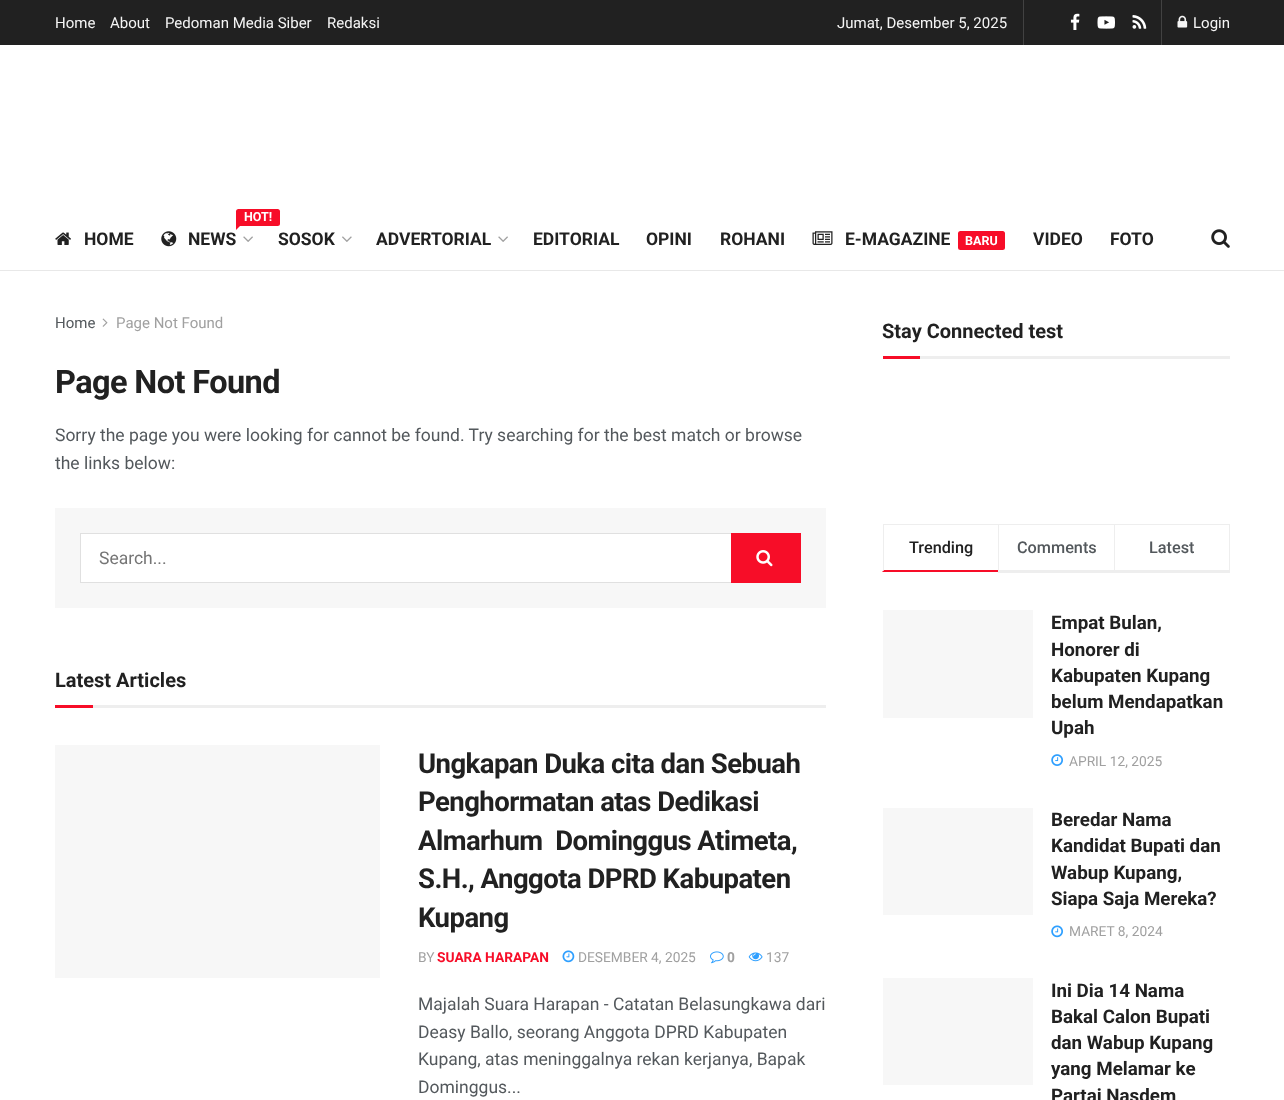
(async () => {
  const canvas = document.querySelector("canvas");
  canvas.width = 1284;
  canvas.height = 1100;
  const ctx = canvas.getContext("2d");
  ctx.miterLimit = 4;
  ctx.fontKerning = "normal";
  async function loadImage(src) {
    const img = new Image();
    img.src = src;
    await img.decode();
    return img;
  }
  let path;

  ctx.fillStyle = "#ffffff";
  ctx.fillRect(0, 0, 1284, 1100);
  for (const [x, y, w, h, color] of [
    [0, 0, 1284, 45, "#212121"],
    [1161, 0, 1, 45, "#424242"],
    [1023, 0, 1, 45, "#424242"],
  ]) {
    ctx.fillStyle = color;
    ctx.fillRect(x, y, w, h);
  }
  ctx.drawImage(await loadImage("img/1.png"), 1070, 13, 10, 17);
  ctx.drawImage(await loadImage("img/2.png"), 1097, 16, 18, 13);
  ctx.drawImage(await loadImage("img/3.png"), 1132, 15, 15, 14);
  ctx.drawImage(await loadImage("img/4.png"), 1177, 15, 11, 13);
  ctx.fillStyle = "#e8e8e8";
  ctx.fillRect(0, 270, 1284, 1);
  ctx.drawImage(await loadImage("img/5.png"), 55, 232, 16, 13);
  ctx.fillStyle = "#f70d28";
  ctx.beginPath();
  ctx.roundRect(236, 209, 44, 17, 2.5);
  ctx.fill();
  path = new Path2D("M236 230V222.5L240 226Z");
  ctx.fill(path);
  ctx.drawImage(await loadImage("img/6.png"), 161, 231, 16, 16);
  ctx.drawImage(await loadImage("img/7.png"), 243, 236, 10, 6);
  ctx.drawImage(await loadImage("img/8.png"), 342, 236, 10, 6);
  ctx.drawImage(await loadImage("img/7.png"), 498, 236, 10, 6);
  ctx.drawImage(await loadImage("img/9.png"), 812, 231, 21, 14);
  ctx.beginPath();
  ctx.roundRect(958, 231, 47, 19, 2.5);
  ctx.fill();
  ctx.drawImage(await loadImage("img/10.png"), 1211, 229, 19, 19);
  ctx.drawImage(await loadImage("img/11.png"), 102, 318, 6, 9);
  ctx.fillStyle = "#f7f7f7";
  ctx.fillRect(55, 508, 771, 100);
  ctx.fillStyle = "#ffffff";
  ctx.fillRect(81, 534, 650, 48);
  ctx.strokeStyle = "#e0e0e0";
  ctx.strokeRect(80.5, 533.5, 720, 49);
  ctx.fillStyle = "#f70d28";
  ctx.fillRect(731, 533, 70, 50);
  ctx.drawImage(await loadImage("img/12.png"), 756, 550, 17, 17);
  for (const [x, y, w, h, color] of [
    [93, 705, 733, 3, "#eeeeee"],
    [55, 705, 38, 3, "#f70d28"],
    [55, 745, 325, 233, "#f7f7f7"],
  ]) {
    ctx.fillStyle = color;
    ctx.fillRect(x, y, w, h);
  }
  ctx.drawImage(await loadImage("img/13.png"), 562, 950, 13, 13);
  ctx.drawImage(await loadImage("img/14.png"), 710, 951, 14, 13);
  ctx.drawImage(await loadImage("img/15.png"), 748, 952, 15, 10);
  for (const [x, y, w, h, color] of [
    [920, 356, 310, 3, "#eeeeee"],
    [883, 356, 37, 3, "#f70d28"],
    [883, 524, 347, 1, "#eeeeee"],
  ]) {
    ctx.fillStyle = color;
    ctx.fillRect(x, y, w, h);
  }
  ctx.fillStyle = "#f70d28";
  path = new Path2D("M998 572H882L884 570H998Z");
  ctx.fill(path);
  ctx.save();
  ctx.beginPath();
  ctx.rect(883, 524, 347, 49);
  ctx.clip();
  ctx.fillStyle = "#eeeeee";
  path = new Path2D("M882 572V524L884 525V570Z");
  ctx.fill(path);
  ctx.restore();
  for (const [x, y, w, h, color] of [
    [998, 570, 116, 3, "#eeeeee"],
    [998, 524, 1, 49, "#eeeeee"],
    [1229, 524, 1, 49, "#eeeeee"],
    [1114, 570, 116, 3, "#eeeeee"],
    [1114, 524, 1, 49, "#eeeeee"],
    [883, 610, 150, 108, "#f7f7f7"],
  ]) {
    ctx.fillStyle = color;
    ctx.fillRect(x, y, w, h);
  }
  ctx.drawImage(await loadImage("img/16.png"), 1051, 754, 12, 12);
  ctx.fillRect(883, 808, 150, 107);
  ctx.drawImage(await loadImage("img/17.png"), 1051, 925, 12, 13);
  ctx.fillRect(883, 978, 150, 107);
  ctx.font = "15px Roboto";
  ctx.fillStyle = "#f5f5f5";
  for (const [text, x, y] of [
    ["Home", 55, 28],
    ["About", 110, 28],
    ["Pedoman Media Siber", 165, 28],
    ["Redaksi", 327, 28],
    ["Jumat, Desember 5, 2025", 837, 28],
    ["Login", 1193, 28],
  ]) {
    ctx.fillText(text, x, y);
  }
  ctx.font = "bold 17.5px Roboto";
  ctx.fillStyle = "#212121";
  ctx.fillText("HOME", 84, 245);
  ctx.font = "bold 12.5px Roboto";
  ctx.fillStyle = "#ffffff";
  ctx.fillText("HOT!", 244, 221);
  ctx.font = "bold 17.5px Roboto";
  ctx.fillStyle = "#212121";
  for (const [text, x, y] of [
    ["NEWS", 188, 245],
    ["SOSOK", 278, 245],
    ["ADVERTORIAL", 376, 245],
    ["EDITORIAL", 533, 245],
    ["OPINI", 646, 245],
    ["ROHANI", 720, 245],
    ["E-MAGAZINE", 845, 245],
  ]) {
    ctx.fillText(text, x, y);
  }
  ctx.font = "bold 12.5px Roboto";
  ctx.fillStyle = "#ffffff";
  ctx.fillText("BARU", 965, 245);
  ctx.font = "bold 17.5px Roboto";
  ctx.fillStyle = "#212121";
  ctx.fillText("VIDEO", 1033, 245);
  ctx.fillText("FOTO", 1110, 245);
  ctx.font = "15px Roboto";
  ctx.fillStyle = "#53585c";
  ctx.fillText("Home", 55, 328);
  ctx.fillStyle = "#a0a0a0";
  ctx.fillText("Page Not Found", 116, 328);
  ctx.letterSpacing = "-0.6px";
  ctx.font = "bold 32.5px Roboto";
  ctx.fillStyle = "#212121";
  ctx.fillText("Page Not Found", 55, 393);
  ctx.letterSpacing = "0px";
  ctx.font = "17.5px Roboto";
  ctx.fillStyle = "#53585c";
  ctx.fillText("Sorry the page you were looking for cannot be found. Try searching for the best match or browse", 55, 441);
  ctx.fillText("the links below:", 55, 469);
  ctx.fillStyle = "#757575";
  ctx.fillText("Search...", 99, 564);
  ctx.font = "bold 20px Roboto";
  ctx.fillStyle = "#212121";
  ctx.fillText("Latest Articles", 55, 687);
  ctx.letterSpacing = "-0.55px";
  ctx.font = "bold 27.5px Roboto";
  for (const [text, x, y] of [
    ["Ungkapan Duka cita dan Sebuah", 418, 773],
    ["Penghormatan atas Dedikasi", 418, 811],
    ["Almarhum  Dominggus Atimeta,", 418, 850],
    ["S.H., Anggota DPRD Kabupaten", 418, 888],
    ["Kupang", 418, 927],
  ]) {
    ctx.fillText(text, x, y);
  }
  ctx.letterSpacing = "0px";
  ctx.font = "13.75px Roboto";
  ctx.fillStyle = "#a0a0a0";
  ctx.fillText("BY", 418, 962);
  ctx.font = "bold 13.75px Roboto";
  ctx.fillStyle = "#f70d28";
  ctx.fillText("SUARA HARAPAN", 437, 962);
  ctx.font = "13.75px Roboto";
  ctx.fillStyle = "#a0a0a0";
  ctx.fillText("DESEMBER 4, 2025", 578, 962);
  ctx.font = "bold 13.75px Roboto";
  ctx.fillText("0", 727, 962);
  ctx.font = "13.75px Roboto";
  ctx.fillText("137", 766, 962);
  ctx.font = "17.5px Roboto";
  ctx.fillStyle = "#53585c";
  for (const [text, x, y] of [
    ["Majalah Suara Harapan - Catatan Belasungkawa dari", 418, 1010],
    ["Deasy Ballo, seorang Anggota DPRD Kabupaten", 418, 1038],
    ["Kupang, atas meninggalnya rekan kerjanya, Bapak", 418, 1065],
    ["Dominggus...", 418, 1093],
  ]) {
    ctx.fillText(text, x, y);
  }
  ctx.font = "bold 20px Roboto";
  ctx.fillStyle = "#212121";
  ctx.fillText("Stay Connected test", 882, 338);
  ctx.font = "500 16.25px Roboto";
  ctx.fillText("Trending", 909, 553);
  ctx.fillStyle = "#53585c";
  ctx.fillText("Comments", 1017, 553);
  ctx.fillText("Latest", 1149, 553);
  ctx.font = "bold 18.75px Roboto";
  ctx.fillStyle = "#212121";
  for (const [text, x, y] of [
    ["Empat Bulan,", 1051, 629],
    ["Honorer di", 1051, 656],
    ["Kabupaten Kupang", 1051, 682],
    ["belum Mendapatkan", 1051, 708],
    ["Upah", 1051, 734],
  ]) {
    ctx.fillText(text, x, y);
  }
  ctx.font = "13.75px Roboto";
  ctx.fillStyle = "#a0a0a0";
  ctx.fillText("APRIL 12, 2025", 1069, 766);
  ctx.font = "bold 18.75px Roboto";
  ctx.fillStyle = "#212121";
  for (const [text, x, y] of [
    ["Beredar Nama", 1051, 826],
    ["Kandidat Bupati dan", 1051, 852],
    ["Wabup Kupang,", 1051, 879],
    ["Siapa Saja Mereka?", 1051, 905],
  ]) {
    ctx.fillText(text, x, y);
  }
  ctx.font = "13.75px Roboto";
  ctx.fillStyle = "#a0a0a0";
  ctx.fillText("MARET 8, 2024", 1069, 936);
  ctx.font = "bold 18.75px Roboto";
  ctx.fillStyle = "#212121";
  for (const [text, x, y] of [
    ["Ini Dia 14 Nama", 1051, 997],
    ["Bakal Calon Bupati", 1051, 1023],
    ["dan Wabup Kupang", 1051, 1049],
    ["yang Melamar ke", 1051, 1075],
    ["Partai Nasdem", 1051, 1102],
  ]) {
    ctx.fillText(text, x, y);
  }
})();
